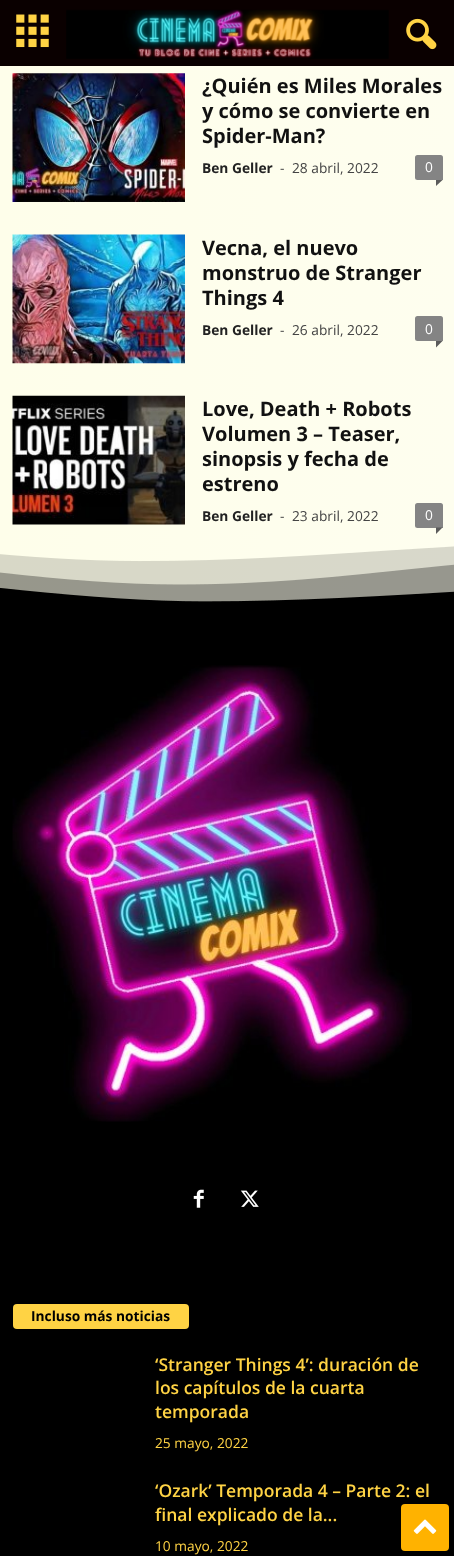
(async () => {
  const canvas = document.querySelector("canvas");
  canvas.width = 454;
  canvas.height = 1556;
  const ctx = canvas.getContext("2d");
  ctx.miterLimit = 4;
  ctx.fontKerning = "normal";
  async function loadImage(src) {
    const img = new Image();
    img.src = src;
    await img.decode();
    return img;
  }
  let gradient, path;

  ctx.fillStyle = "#000000";
  ctx.fillRect(0, 0, 454, 1556);
  ctx.fillStyle = "#0a0000";
  ctx.fillRect(0, 0, 454, 66);
  ctx.drawImage(await loadImage("img/1.png"), 16, 14, 33, 34);
  ctx.drawImage(await loadImage("img/2.png"), 66, 9, 323, 50);
  ctx.drawImage(await loadImage("img/3.png"), 406, 18, 31, 32);
  gradient = ctx.createLinearGradient(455, -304, 0, -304);
  gradient.addColorStop(0, "#fefeef");
  gradient.addColorStop(1, "#fefeea");
  ctx.fillStyle = gradient;
  ctx.fillRect(0, 66, 454, 536);
  ctx.drawImage(await loadImage("img/4.png"), 12, 73, 173, 129);
  ctx.fillStyle = "#848484";
  ctx.beginPath();
  ctx.roundRect(415, 155, 28, 25, [2.5, 2.5, 0, 2.5]);
  ctx.fill();
  ctx.fillStyle = "#5b5b5b";
  path = new Path2D("M436 180H442.5L436 186Z");
  ctx.fill(path);
  ctx.drawImage(await loadImage("img/5.png"), 12, 234, 173, 130);
  ctx.fillStyle = "#848484";
  ctx.beginPath();
  ctx.roundRect(415, 316, 28, 25, [2.5, 2.5, 0, 2.5]);
  ctx.fill();
  ctx.fillStyle = "#5b5b5b";
  path = new Path2D("M436 341H442.5L436 347.5Z");
  ctx.fill(path);
  ctx.drawImage(await loadImage("img/6.png"), 12, 395, 173, 130);
  ctx.fillStyle = "#848484";
  ctx.beginPath();
  ctx.roundRect(415, 503, 28, 25, [2.5, 2.5, 0, 2.5]);
  ctx.fill();
  ctx.fillStyle = "#5b5b5b";
  path = new Path2D("M436 527.5H442.5L436 534Z");
  ctx.fill(path);
  ctx.drawImage(await loadImage("img/7.png"), 0, 546, 454, 62);
  ctx.drawImage(await loadImage("img/8.png"), 12, 665, 400, 457);
  ctx.drawImage(await loadImage("img/9.png"), 193, 1189, 11, 19);
  ctx.drawImage(await loadImage("img/10.png"), 240, 1190, 19, 17);
  ctx.fillStyle = "#ffd344";
  ctx.beginPath();
  ctx.roundRect(13, 1304, 176, 25, 4);
  ctx.fill();
  ctx.fillStyle = "#ffb200";
  ctx.beginPath();
  ctx.roundRect(401, 1504, 48, 47, 4);
  ctx.fill();
  ctx.drawImage(await loadImage("img/11.png"), 413, 1519, 24, 15);
  ctx.font = "bold 20px Open Sans";
  ctx.fillStyle = "#111111";
  for (const [text, x, y] of [
    ["¿Quién es Miles Morales", 202, 93],
    ["y cómo se convierte en", 202, 118],
    ["Spider-Man?", 202, 143],
  ]) {
    ctx.fillText(text, x, y);
  }
  ctx.font = "bold 13.75px Open Sans";
  ctx.fillStyle = "#222222";
  ctx.fillText("Ben Geller", 202, 173);
  ctx.font = "13.75px Open Sans";
  ctx.fillStyle = "#444444";
  ctx.fillText("-", 280, 173);
  ctx.fillText("28 abril, 2022", 292, 173);
  ctx.fillStyle = "#ffffff";
  ctx.fillText("0", 425, 172);
  ctx.font = "bold 20px Open Sans";
  ctx.fillStyle = "#111111";
  for (const [text, x, y] of [
    ["Vecna, el nuevo", 202, 255],
    ["monstruo de Stranger", 202, 280],
    ["Things 4", 202, 305],
  ]) {
    ctx.fillText(text, x, y);
  }
  ctx.font = "bold 13.75px Open Sans";
  ctx.fillStyle = "#222222";
  ctx.fillText("Ben Geller", 202, 335);
  ctx.font = "13.75px Open Sans";
  ctx.fillStyle = "#444444";
  ctx.fillText("-", 280, 335);
  ctx.fillText("26 abril, 2022", 292, 335);
  ctx.fillStyle = "#ffffff";
  ctx.fillText("0", 425, 334);
  ctx.font = "bold 20px Open Sans";
  ctx.fillStyle = "#111111";
  for (const [text, x, y] of [
    ["Love, Death + Robots", 202, 416],
    ["Volumen 3 – Teaser,", 202, 441],
    ["sinopsis y fecha de", 202, 466],
    ["estreno", 202, 491],
  ]) {
    ctx.fillText(text, x, y);
  }
  ctx.font = "bold 13.75px Open Sans";
  ctx.fillStyle = "#222222";
  ctx.fillText("Ben Geller", 202, 521);
  ctx.font = "13.75px Open Sans";
  ctx.fillStyle = "#444444";
  ctx.fillText("-", 280, 521);
  ctx.fillText("23 abril, 2022", 292, 521);
  ctx.fillStyle = "#ffffff";
  ctx.fillText("0", 425, 520);
  ctx.font = "bold 13.75px Open Sans";
  ctx.fillStyle = "#000000";
  ctx.fillText("Incluso más noticias", 31, 1321);
  ctx.font = "600 17.5px Open Sans";
  ctx.fillStyle = "#ffd344";
  for (const [text, x, y] of [
    ["‘Stranger Things 4’: duración de", 155, 1371],
    ["los capítulos de la cuarta", 155, 1394],
    ["temporada", 155, 1418],
  ]) {
    ctx.fillText(text, x, y);
  }
  ctx.font = "13.75px Open Sans";
  ctx.fillText("25 mayo, 2022", 155, 1448);
  ctx.font = "600 17.5px Open Sans";
  ctx.fillText("‘Ozark’ Temporada 4 – Parte 2: el", 155, 1497);
  ctx.fillText("final explicado de la...", 155, 1521);
  ctx.font = "13.75px Open Sans";
  ctx.fillText("10 mayo, 2022", 155, 1551);
})();
